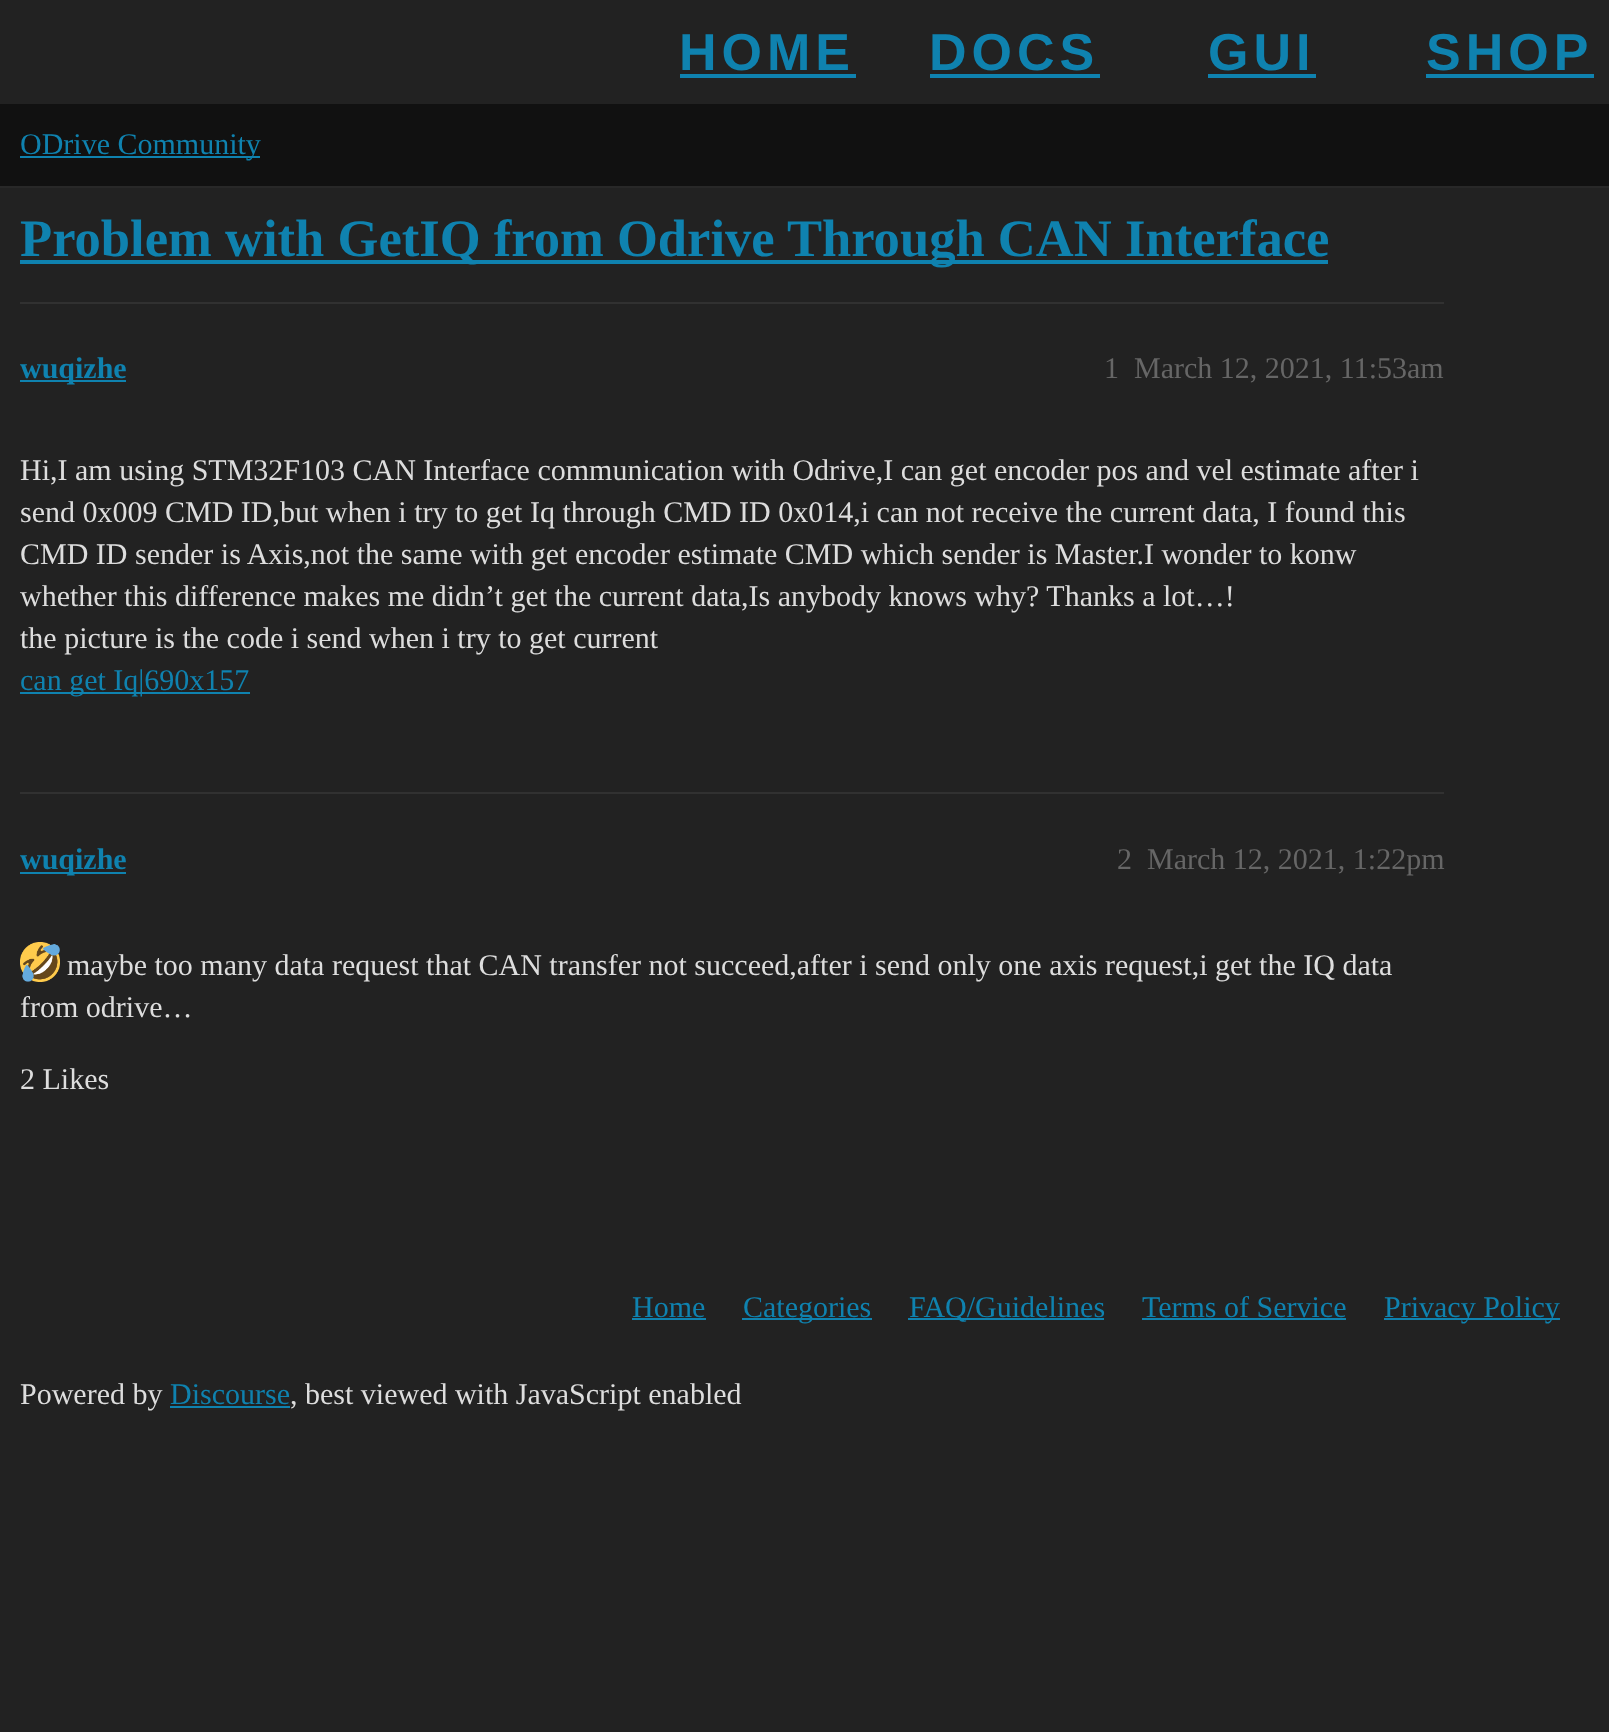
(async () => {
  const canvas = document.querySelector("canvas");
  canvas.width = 1609;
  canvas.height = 1732;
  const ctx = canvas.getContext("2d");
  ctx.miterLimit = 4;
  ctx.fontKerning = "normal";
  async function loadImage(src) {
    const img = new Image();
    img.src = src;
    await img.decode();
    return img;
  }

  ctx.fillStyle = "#222222";
  ctx.fillRect(0, 0, 1609, 1732);
  for (const [x, y, w, h, color] of [
    [680, 74, 176, 4, "#0f82af"],
    [930, 74, 170, 4, "#0f82af"],
    [1208, 74, 108, 4, "#0f82af"],
    [1426, 74, 168, 4, "#0f82af"],
    [0, 104, 1609, 82, "#111111"],
    [0, 186, 1609, 2, "#282828"],
    [20, 156, 240, 2, "#0f82af"],
    [20, 260, 1308, 4, "#0f82af"],
    [20, 302, 1424, 2, "#313131"],
    [20, 380, 106, 2, "#0f82af"],
    [20, 692, 230, 2, "#0f82af"],
    [20, 792, 1424, 2, "#313131"],
    [20, 872, 106, 2, "#0f82af"],
  ]) {
    ctx.fillStyle = color;
    ctx.fillRect(x, y, w, h);
  }
  ctx.drawImage(await loadImage("img/1.png"), 20, 942, 40, 40);
  for (const [x, y, w, h, color] of [
    [632, 1318, 74, 2, "#0f82af"],
    [742, 1318, 130, 2, "#0f82af"],
    [908, 1318, 196, 2, "#0f82af"],
    [1142, 1318, 204, 2, "#0f82af"],
    [1384, 1318, 176, 2, "#0f82af"],
    [170, 1406, 120, 2, "#0f82af"],
  ]) {
    ctx.fillStyle = color;
    ctx.fillRect(x, y, w, h);
  }
  ctx.letterSpacing = "5px";
  ctx.font = "bold 52px Liberation Sans";
  for (const [text, x, y] of [
    ["HOME", 679, 70],
    ["DOCS", 929, 70],
    ["GUI", 1208, 70],
    ["SHOP", 1426, 70],
  ]) {
    ctx.fillText(text, x, y);
  }
  ctx.letterSpacing = "0px";
  ctx.font = "30px Liberation Serif";
  ctx.fillText("ODrive Community", 20, 154);
  ctx.font = "bold 52.6px Liberation Serif";
  ctx.fillText("Problem with GetIQ from Odrive Through CAN Interface", 20, 256);
  ctx.font = "bold 30px Liberation Serif";
  ctx.fillText("wuqizhe", 20, 378);
  ctx.font = "30px Liberation Serif";
  ctx.fillStyle = "#666666";
  ctx.fillText("1", 1104, 378);
  ctx.fillText("March 12, 2021, 11:53am", 1134, 378);
  ctx.fillStyle = "#dddddd";
  for (const [text, x, y] of [
    ["Hi,I am using STM32F103 CAN Interface communication with Odrive,I can get encoder pos and vel estimate after i", 20, 480],
    ["send 0x009 CMD ID,but when i try to get Iq through CMD ID 0x014,i can not receive the current data, I found this", 20, 522],
    ["CMD ID sender is Axis,not the same with get encoder estimate CMD which sender is Master.I wonder to konw", 20, 564],
    ["whether this difference makes me didn’t get the current data,Is anybody knows why? Thanks a lot…!", 20, 606],
    ["the picture is the code i send when i try to get current", 20, 648],
  ]) {
    ctx.fillText(text, x, y);
  }
  ctx.fillStyle = "#0f82af";
  ctx.fillText("can get Iq|690x157", 20, 690);
  ctx.font = "bold 30px Liberation Serif";
  ctx.fillText("wuqizhe", 20, 869);
  ctx.font = "30px Liberation Serif";
  ctx.fillStyle = "#666666";
  ctx.fillText("2", 1117, 869);
  ctx.fillText("March 12, 2021, 1:22pm", 1147, 869);
  ctx.fillStyle = "#dddddd";
  for (const [text, x, y] of [
    ["maybe too many data request that CAN transfer not succeed,after i send only one axis request,i get the IQ data", 67, 975],
    ["from odrive…", 20, 1017],
    ["2 Likes", 20, 1089],
  ]) {
    ctx.fillText(text, x, y);
  }
  ctx.fillStyle = "#0f82af";
  for (const [text, x, y] of [
    ["Home", 632, 1317],
    ["Categories", 743, 1317],
    ["FAQ/Guidelines", 909, 1317],
    ["Terms of Service", 1142, 1317],
    ["Privacy Policy", 1384, 1317],
  ]) {
    ctx.fillText(text, x, y);
  }
  ctx.fillStyle = "#dddddd";
  ctx.fillText("Powered by", 20, 1404);
  ctx.fillStyle = "#0f82af";
  ctx.fillText("Discourse", 170, 1404);
  ctx.fillStyle = "#dddddd";
  ctx.fillText(", best viewed with JavaScript enabled", 290, 1404);
})();
